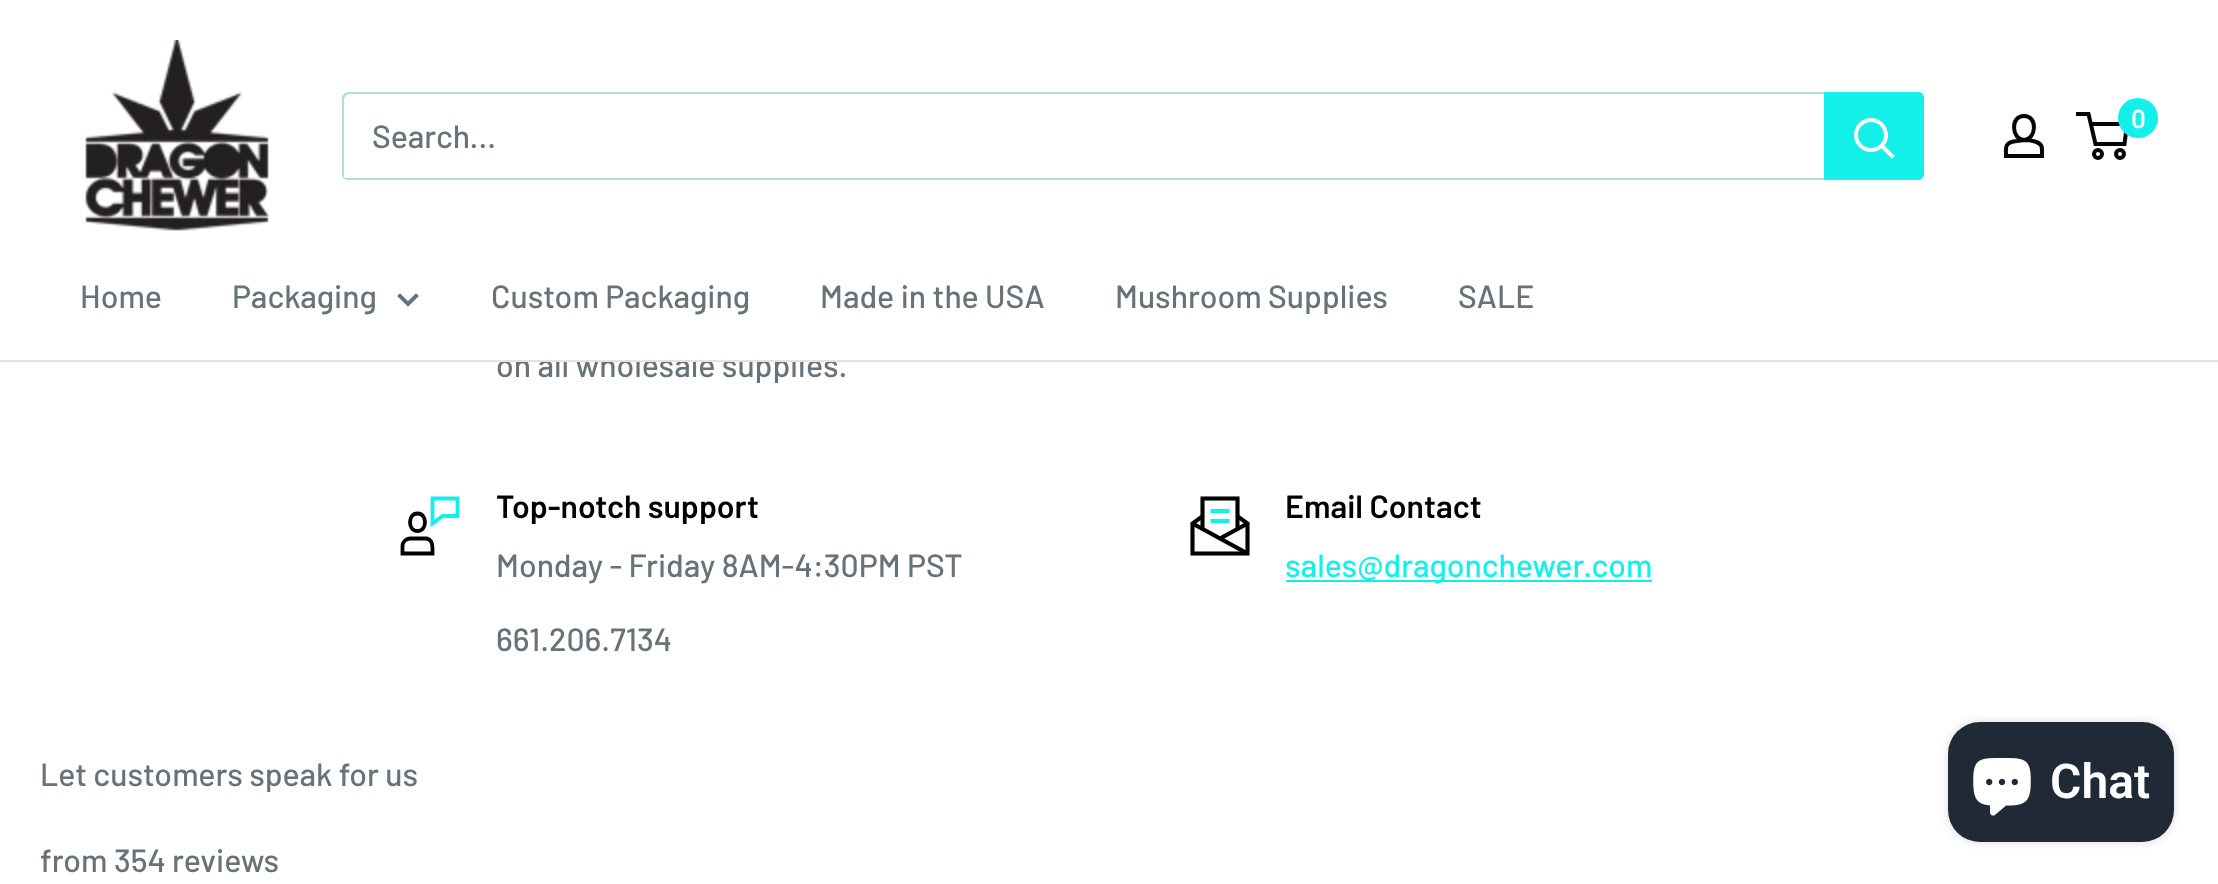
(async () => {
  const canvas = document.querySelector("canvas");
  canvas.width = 2218;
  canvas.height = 884;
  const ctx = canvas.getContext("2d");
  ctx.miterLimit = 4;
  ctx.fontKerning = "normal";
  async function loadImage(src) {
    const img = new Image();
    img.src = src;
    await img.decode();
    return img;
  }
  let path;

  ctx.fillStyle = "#ffffff";
  ctx.fillRect(0, 0, 2218, 884);
  ctx.drawImage(await loadImage("img/1.png"), 85, 40, 184, 191);
  path = new Path2D("M2024 140C2028 140 2031.5 140.5 2035 141.5C2043.5 144 2042 148.5 2042 156H2006C2006 148 2004.5 143.5 2013.5 141.5ZM2024 140C2012 140 2009.5 116 2024 116C2038.5 116 2036 140 2024 140Z");
  ctx.strokeStyle = "#050505";
  ctx.lineWidth = 4;
  ctx.stroke(path);
  ctx.beginPath();
  ctx.arc(2098, 154, 4, 0, Math.PI * 2);
  ctx.stroke();
  ctx.beginPath();
  ctx.arc(2120, 154, 4, 0, Math.PI * 2);
  ctx.stroke();
  path = new Path2D("M2090.5 124H2127L2124.5 144H2095.5L2088.5 114H2076");
  ctx.stroke(path);
  ctx.fillStyle = "#13f0e9";
  ctx.beginPath();
  ctx.arc(2138, 118, 20, 0, Math.PI * 2);
  ctx.fill();
  ctx.fillStyle = "#b3dcdc";
  path = new Path2D("M343 177C344 179 346 180 348 180H1918C1921 180 1924 177 1924 174V98C1924 96 1923 94 1921 93C1922 94 1922 95 1922 96V172C1922 175 1919 178 1916 178H346C345 178 344 178 343 177Z");
  ctx.fill(path);
  ctx.fillStyle = "rgba(2, 139, 139, 0.3)";
  path = new Path2D("M350 94H1920L1923 95C1922 93 1920 92 1918 92H348C345 92 342 95 342 98V174C342 176 343 178 345 179C344 178 344 177 344 176V100C344 97 347 94 350 94Z");
  ctx.fill(path);
  ctx.fillStyle = "#13f0e9";
  ctx.beginPath();
  ctx.roundRect(1824, 92, 100, 88, [0, 6, 6, 0]);
  ctx.fill();
  path = new Path2D("M1892 156L1882 146");
  ctx.strokeStyle = "#ffffff";
  ctx.lineCap = "square";
  ctx.stroke(path);
  ctx.beginPath();
  ctx.arc(1871, 135, 15, 0, Math.PI * 2);
  ctx.stroke();
  path = new Path2D("M416 296L408 304L400 296");
  ctx.strokeStyle = "#677279";
  ctx.stroke(path);
  path = new Path2D("M425 538.5H410C406 538.5 402.5 542 402.5 546V553.5H432.5C432.5 547.5 433.5 538.5 425 538.5ZM417.5 531C407.5 531 407.5 513.5 417.5 513.5C427.5 513.5 427.5 531 417.5 531Z");
  ctx.strokeStyle = "#000000";
  ctx.lineWidth = 3.8;
  ctx.stroke(path);
  path = new Path2D("M432.5 498.5V523.5L442.5 516H457.5V498.5Z");
  ctx.strokeStyle = "#13f0e9";
  ctx.stroke(path);
  ctx.drawImage(await loadImage("img/2.png"), 1190, 496, 60, 60);
  ctx.fillRect(1286, 580, 366, 2);
  ctx.fillStyle = "rgba(0, 0, 0, 0.15)";
  ctx.filter = "blur(5px)";
  ctx.beginPath();
  ctx.roundRect(1948, 722, 226, 120, 32);
  ctx.fill();
  ctx.filter = "none";
  ctx.fillStyle = "#202a36";
  ctx.beginPath();
  ctx.roundRect(1948, 722, 226, 120, 32);
  ctx.fill();
  ctx.drawImage(await loadImage("img/3.png"), 1973, 758, 58, 58);
  ctx.font = "600 26px Barlow";
  ctx.fillStyle = "#ffffff";
  ctx.fillText("0", 2131, 128);
  ctx.font = "500 32px Barlow";
  ctx.fillStyle = "#677279";
  for (const [text, x, y] of [
    ["Search...", 372, 148],
    ["Home", 80, 308],
    ["Packaging", 232, 308],
    ["Custom Packaging", 491, 308],
    ["Made in the USA", 820, 308],
    ["Mushroom Supplies", 1115, 308],
    ["SALE", 1458, 308],
    ["on all wholesale supplies.", 496, 377],
  ]) {
    ctx.fillText(text, x, y);
  }
  ctx.fillStyle = "#e1e3e4";
  ctx.fillRect(0, 360, 2218, 2);
  ctx.fillStyle = "#ffffff";
  ctx.fillRect(556, 354, 248, 6);
  ctx.font = "600 32px Barlow";
  ctx.fillStyle = "#000000";
  ctx.fillText("Top-notch support", 496, 518);
  ctx.font = "500 32px Barlow";
  ctx.fillStyle = "#677279";
  ctx.fillText("Monday - Friday 8AM-4:30PM PST", 496, 577);
  ctx.fillText("661.206.7134", 496, 651);
  ctx.font = "600 32px Barlow";
  ctx.fillStyle = "#000000";
  ctx.fillText("Email Contact", 1285, 518);
  ctx.font = "500 32px Barlow";
  ctx.fillStyle = "#13f0e9";
  ctx.fillText("sales@dragonchewer.com", 1285, 577);
  ctx.fillStyle = "#677279";
  ctx.fillText("Let customers speak for us", 40, 786);
  ctx.fillText("from 354 reviews", 40, 872);
  ctx.font = "600 48px Roboto";
  ctx.fillStyle = "#ffffff";
  ctx.fillText("Chat", 2050, 798);
})();
